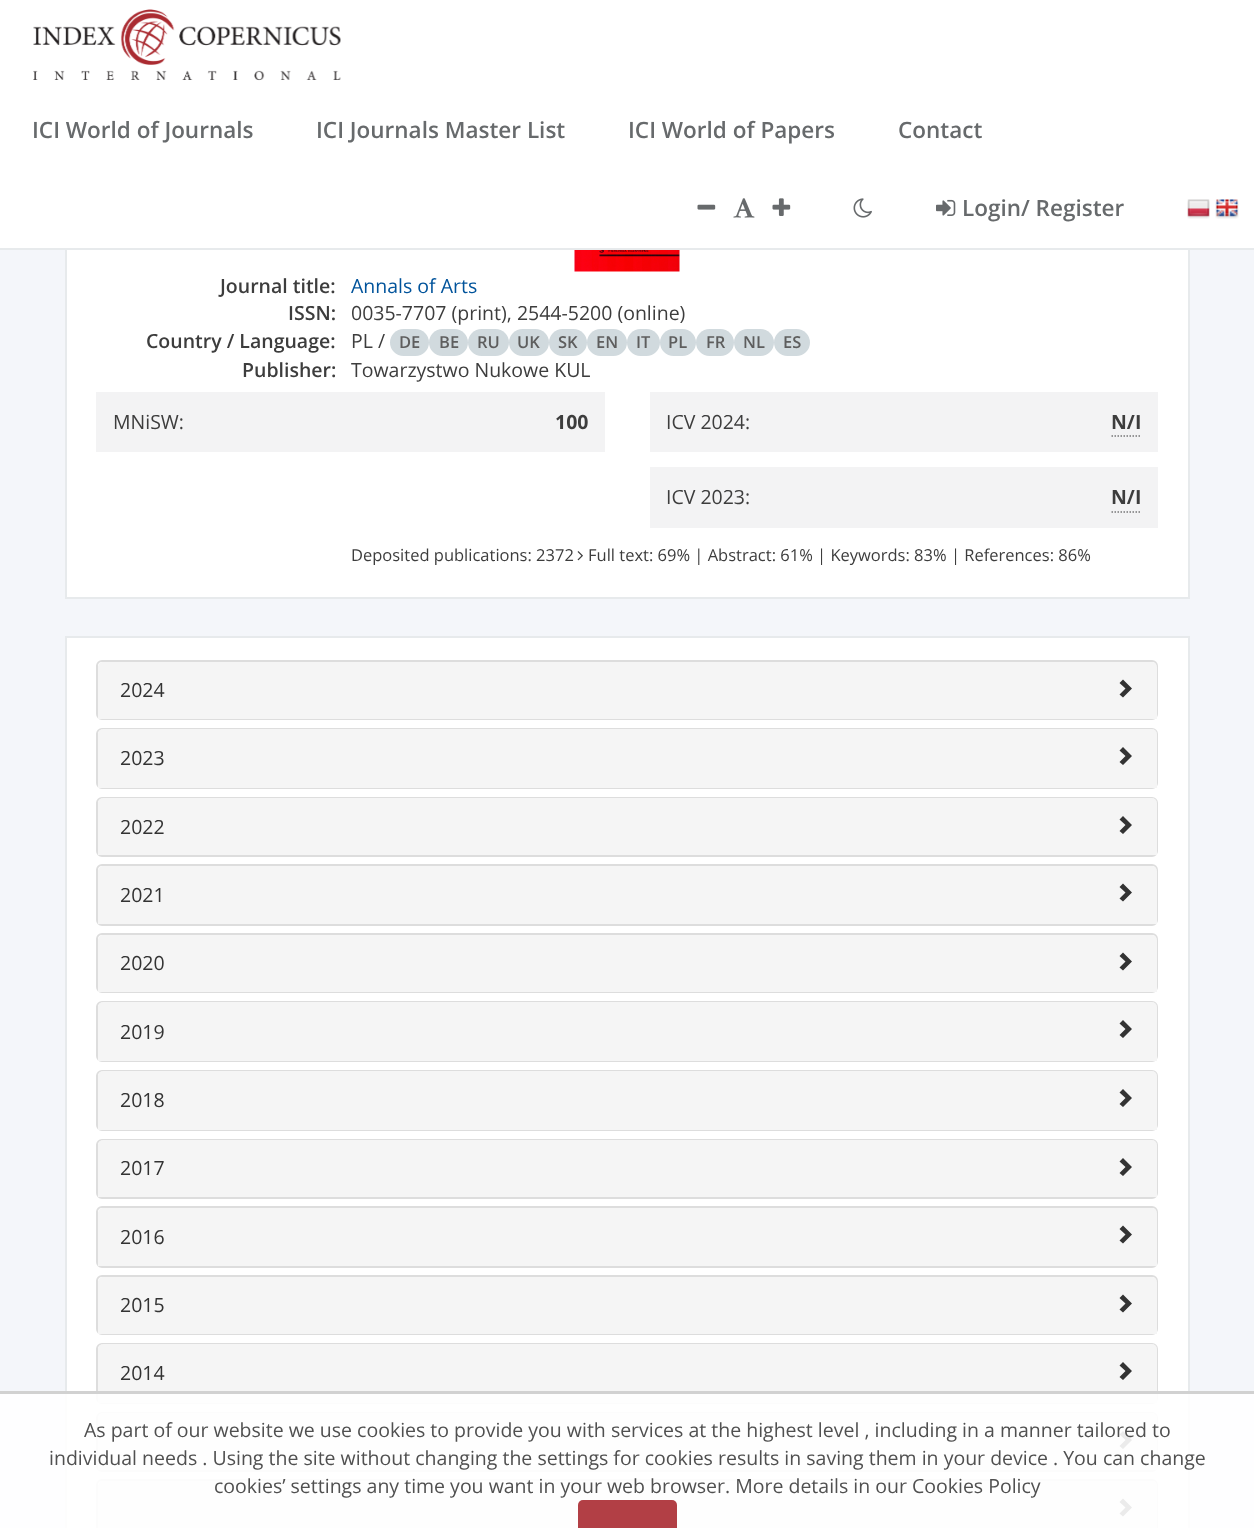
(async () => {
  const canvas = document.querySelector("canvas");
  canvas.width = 1254;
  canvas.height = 1528;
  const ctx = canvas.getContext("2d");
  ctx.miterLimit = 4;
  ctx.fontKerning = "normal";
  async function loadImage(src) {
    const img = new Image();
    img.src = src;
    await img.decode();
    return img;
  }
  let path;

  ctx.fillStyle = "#f4f6fa";
  ctx.fillRect(0, 0, 1254, 1528);
  ctx.fillStyle = "#ffffff";
  ctx.fillRect(67, 250, 1121, 347);
  ctx.strokeStyle = "#e7eaec";
  ctx.lineWidth = 2;
  ctx.strokeRect(66, 99, 1123, 499);
  ctx.fillRect(0, 0, 1254, 248);
  ctx.fillStyle = "#e7eaec";
  ctx.fillRect(0, 248, 1254, 2);
  ctx.drawImage(await loadImage("img/1.png"), 33, 9, 308, 72);
  ctx.drawImage(await loadImage("img/2.png"), 697, 204, 19, 6);
  ctx.drawImage(await loadImage("img/3.png"), 733, 198, 22, 20);
  ctx.drawImage(await loadImage("img/4.png"), 772, 198, 19, 18);
  ctx.drawImage(await loadImage("img/5.png"), 853, 198, 19, 20);
  ctx.drawImage(await loadImage("img/6.png"), 936, 199, 20, 17);
  ctx.drawImage(await loadImage("img/7.png"), 1187, 199, 23, 20);
  ctx.drawImage(await loadImage("img/8.png"), 1215, 199, 24, 20);
  ctx.drawImage(await loadImage("img/9.png"), 574, 250, 106, 22);
  ctx.fillStyle = "#d1dade";
  ctx.beginPath();
  ctx.roundRect(390, 329, 39, 27, 13.5);
  ctx.fill();
  ctx.beginPath();
  ctx.roundRect(429, 329, 39, 27, 13.5);
  ctx.fill();
  ctx.beginPath();
  ctx.roundRect(468, 329, 41, 27, 13.5);
  ctx.fill();
  ctx.beginPath();
  ctx.roundRect(509, 329, 40, 27, 13.5);
  ctx.fill();
  ctx.beginPath();
  ctx.roundRect(549, 329, 38, 27, 13.5);
  ctx.fill();
  ctx.beginPath();
  ctx.roundRect(587, 329, 40, 27, 13.5);
  ctx.fill();
  ctx.beginPath();
  ctx.roundRect(627, 329, 33, 27, 13.5);
  ctx.fill();
  ctx.beginPath();
  ctx.roundRect(660, 329, 36, 27, 13.5);
  ctx.fill();
  ctx.beginPath();
  ctx.roundRect(696, 329, 38, 27, 13.5);
  ctx.fill();
  ctx.beginPath();
  ctx.roundRect(734, 329, 40, 27, 13.5);
  ctx.fill();
  ctx.beginPath();
  ctx.roundRect(774, 329, 36, 27, 13.5);
  ctx.fill();
  ctx.fillStyle = "#f3f3f4";
  ctx.fillRect(96, 392, 509, 60);
  ctx.fillRect(650, 392, 508, 60);
  path = new Path2D("M1111.5 436H1141.5");
  ctx.strokeStyle = "#777777";
  ctx.lineWidth = 1.5;
  ctx.setLineDash([1.5, 1.5]);
  ctx.stroke(path);
  ctx.fillRect(650, 467, 508, 61);
  path = new Path2D("M1111.5 512H1141.5");
  ctx.stroke(path);
  ctx.drawImage(await loadImage("img/10.png"), 577, 551, 6, 10);
  ctx.fillStyle = "#ffffff";
  ctx.beginPath();
  ctx.rect(66, 637, 1123, 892);
  ctx.fill();
  ctx.strokeStyle = "#e7eaec";
  ctx.lineWidth = 2;
  ctx.setLineDash([]);
  ctx.stroke();
  ctx.beginPath();
  ctx.roundRect(97, 661, 1060, 58, 5);
  ctx.strokeStyle = "#dddddd";
  ctx.stroke();
  ctx.fillStyle = "#f5f5f5";
  ctx.beginPath();
  ctx.roundRect(98, 662, 1059, 57, [5, 5, 0, 0]);
  ctx.fill();
  ctx.fillStyle = "#333333";
  path = new Path2D("M1132 688.5L1123 697.5L1119.5 694.5L1125.5 688.5L1119.5 683L1123 679.5Z");
  ctx.fill(path);
  ctx.beginPath();
  ctx.roundRect(97, 729, 1060, 59, 5);
  ctx.stroke();
  ctx.fillStyle = "#f5f5f5";
  ctx.beginPath();
  ctx.roundRect(98, 729, 1059, 59, [5, 5, 0, 0]);
  ctx.fill();
  ctx.fillStyle = "#333333";
  path = new Path2D("M1132 756L1123 765L1119.5 762L1125.5 756L1119.5 750.5L1123 747Z");
  ctx.fill(path);
  ctx.beginPath();
  ctx.roundRect(97, 798, 1060, 58, 5);
  ctx.stroke();
  ctx.fillStyle = "#f5f5f5";
  ctx.beginPath();
  ctx.roundRect(98, 798, 1059, 57, [5, 5, 0, 0]);
  ctx.fill();
  ctx.fillStyle = "#333333";
  path = new Path2D("M1132 825L1123 834L1119.5 831L1125.5 825L1119.5 819.5L1123 816Z");
  ctx.fill(path);
  ctx.beginPath();
  ctx.roundRect(97, 865, 1060, 60, 5);
  ctx.stroke();
  ctx.fillStyle = "#f5f5f5";
  ctx.beginPath();
  ctx.roundRect(98, 866, 1059, 58, [5, 5, 0, 0]);
  ctx.fill();
  ctx.fillStyle = "#333333";
  path = new Path2D("M1132 892.5L1123 901.5L1119.5 898.5L1125.5 892.5L1119.5 887L1123 883.5Z");
  ctx.fill(path);
  ctx.beginPath();
  ctx.roundRect(97, 934, 1060, 58, 5);
  ctx.stroke();
  ctx.fillStyle = "#f5f5f5";
  ctx.beginPath();
  ctx.roundRect(98, 935, 1059, 57, [5, 5, 0, 0]);
  ctx.fill();
  ctx.fillStyle = "#333333";
  path = new Path2D("M1132 961.5L1123 970.5L1119.5 967.5L1125.5 961.5L1119.5 956L1123 952.5Z");
  ctx.fill(path);
  ctx.beginPath();
  ctx.roundRect(97, 1002, 1060, 59, 5);
  ctx.stroke();
  ctx.fillStyle = "#f5f5f5";
  ctx.beginPath();
  ctx.roundRect(98, 1002, 1059, 59, [5, 5, 0, 0]);
  ctx.fill();
  ctx.fillStyle = "#333333";
  path = new Path2D("M1132 1029L1123 1038L1119.5 1035L1125.5 1029L1119.5 1023.5L1123 1020Z");
  ctx.fill(path);
  ctx.beginPath();
  ctx.roundRect(97, 1071, 1060, 59, 5);
  ctx.stroke();
  ctx.fillStyle = "#f5f5f5";
  ctx.beginPath();
  ctx.roundRect(98, 1071, 1059, 59, [5, 5, 0, 0]);
  ctx.fill();
  ctx.fillStyle = "#333333";
  path = new Path2D("M1132 1098L1123 1107L1119.5 1104L1125.5 1098L1119.5 1092.5L1123 1089Z");
  ctx.fill(path);
  ctx.beginPath();
  ctx.roundRect(97, 1140, 1060, 58, 5);
  ctx.stroke();
  ctx.fillStyle = "#f5f5f5";
  ctx.beginPath();
  ctx.roundRect(98, 1140, 1059, 57, [5, 5, 0, 0]);
  ctx.fill();
  ctx.fillStyle = "#333333";
  path = new Path2D("M1132 1167L1123 1176L1119.5 1173L1125.5 1167L1119.5 1161.5L1123 1158Z");
  ctx.fill(path);
  ctx.beginPath();
  ctx.roundRect(97, 1207, 1060, 60, 5);
  ctx.stroke();
  ctx.fillStyle = "#f5f5f5";
  ctx.beginPath();
  ctx.roundRect(98, 1208, 1059, 58, [5, 5, 0, 0]);
  ctx.fill();
  ctx.fillStyle = "#333333";
  path = new Path2D("M1132 1234.5L1123 1243.5L1119.5 1240.5L1125.5 1234.5L1119.5 1229L1123 1225.5Z");
  ctx.fill(path);
  ctx.beginPath();
  ctx.roundRect(97, 1276, 1060, 58, 5);
  ctx.stroke();
  ctx.fillStyle = "#f5f5f5";
  ctx.beginPath();
  ctx.roundRect(98, 1277, 1059, 57, [5, 5, 0, 0]);
  ctx.fill();
  ctx.fillStyle = "#333333";
  path = new Path2D("M1132 1303.5L1123 1312.5L1119.5 1309.5L1125.5 1303.5L1119.5 1298L1123 1294.5Z");
  ctx.fill(path);
  ctx.beginPath();
  ctx.roundRect(97, 1344, 1060, 59, 5);
  ctx.stroke();
  ctx.fillStyle = "#f5f5f5";
  ctx.beginPath();
  ctx.roundRect(98, 1344, 1059, 59, [5, 5, 0, 0]);
  ctx.fill();
  ctx.fillStyle = "#333333";
  path = new Path2D("M1132 1371L1123 1380L1119.5 1377L1125.5 1371L1119.5 1365.5L1123 1362Z");
  ctx.fill(path);
  ctx.beginPath();
  ctx.roundRect(97, 1413, 1060, 58, 5);
  ctx.stroke();
  ctx.fillStyle = "#f5f5f5";
  ctx.beginPath();
  ctx.roundRect(98, 1413, 1059, 57, [5, 5, 0, 0]);
  ctx.fill();
  ctx.fillStyle = "#333333";
  path = new Path2D("M1132 1440L1123 1449L1119.5 1446L1125.5 1440L1119.5 1434.5L1123 1431Z");
  ctx.fill(path);
  ctx.beginPath();
  ctx.roundRect(97, 1480, 1060, 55, 5);
  ctx.stroke();
  ctx.fillStyle = "#f5f5f5";
  path = new Path2D("M103 1481H1152C1155 1481 1157 1483 1157 1486V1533H98V1486C98 1483 100 1481 103 1481Z");
  ctx.fill(path);
  ctx.fillStyle = "#333333";
  path = new Path2D("M1132 1507.5L1123 1516.5L1119.5 1513.5L1125.5 1507.5L1119.5 1502L1123 1498.5Z");
  ctx.fill(path);
  ctx.fillStyle = "rgba(255, 255, 255, 0.9)";
  ctx.fillRect(0, 1391, 1254, 137);
  ctx.fillStyle = "rgba(204, 204, 204, 0.9)";
  ctx.fillRect(0, 1391, 1254, 3);
  ctx.fillStyle = "#b23f45";
  ctx.beginPath();
  ctx.roundRect(578, 1500, 99, 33, 5);
  ctx.fill();
  ctx.font = "600 22.5px Open Sans";
  ctx.fillStyle = "#676a6c";
  for (const [text, x, y] of [
    ["ICI World of Journals", 32, 138],
    ["ICI Journals Master List", 316, 138],
    ["ICI World of Papers", 628, 138],
    ["Contact", 898, 138],
    ["Login/ Register", 962, 216],
  ]) {
    ctx.fillText(text, x, y);
  }
  ctx.font = "600 19.5px Open Sans";
  ctx.fillStyle = "#3d3d3d";
  ctx.fillText("Journal title:", 220, 293);
  ctx.font = "19.5px Open Sans";
  ctx.fillStyle = "#00539b";
  ctx.fillText("Annals of Arts", 351, 293);
  ctx.font = "600 19.5px Open Sans";
  ctx.fillStyle = "#3d3d3d";
  ctx.fillText("ISSN:", 288, 320);
  ctx.font = "19.5px Open Sans";
  ctx.fillText("0035-7707 (print), 2544-5200 (online)", 351, 320);
  ctx.font = "600 19.5px Open Sans";
  ctx.fillText("Country / Language:", 146, 348);
  ctx.font = "19.5px Open Sans";
  ctx.fillText("PL /", 351, 348);
  ctx.font = "600 16.5px Open Sans";
  ctx.fillStyle = "#5e5e5e";
  for (const [text, x, y] of [
    ["DE", 399, 348],
    ["BE", 439, 348],
    ["RU", 477, 348],
    ["UK", 517, 348],
    ["SK", 558, 348],
    ["EN", 596, 348],
    ["IT", 636, 348],
    ["PL", 668, 348],
    ["FR", 706, 348],
    ["NL", 743, 348],
    ["ES", 783, 348],
  ]) {
    ctx.fillText(text, x, y);
  }
  ctx.font = "600 19.5px Open Sans";
  ctx.fillStyle = "#3d3d3d";
  ctx.fillText("Publisher:", 242, 377);
  ctx.font = "19.5px Open Sans";
  ctx.fillText("Towarzystwo Nukowe KUL", 351, 377);
  ctx.fillText("MNiSW:", 113, 429);
  ctx.font = "bold 19.5px Open Sans";
  ctx.fillText("100", 555, 429);
  ctx.font = "19.5px Open Sans";
  ctx.fillText("ICV 2024:", 666, 429);
  ctx.font = "bold 19.5px Open Sans";
  ctx.fillText("N/I", 1111, 429);
  ctx.font = "19.5px Open Sans";
  ctx.fillText("ICV 2023:", 666, 504);
  ctx.font = "bold 19.5px Open Sans";
  ctx.fillText("N/I", 1111, 504);
  ctx.font = "16.5px Open Sans";
  ctx.fillText("Deposited publications: 2372", 351, 561);
  ctx.fillText("Full text: 69% | Abstract: 61% | Keywords: 83% | References: 86%", 588, 561);
  ctx.font = "19.5px Open Sans";
  ctx.fillStyle = "#333333";
  for (const [text, x, y] of [
    ["2024", 120, 697],
    ["2023", 120, 765],
    ["2022", 120, 834],
    ["2021", 120, 902],
    ["2020", 120, 970],
    ["2019", 120, 1039],
    ["2018", 120, 1107],
    ["2017", 120, 1175],
    ["2016", 120, 1244],
    ["2015", 120, 1312],
    ["2014", 120, 1380],
  ]) {
    ctx.fillText(text, x, y);
  }
  ctx.fillStyle = "#505050";
  for (const [text, x, y] of [
    ["As part of our website we use cookies to provide you with services at the highest level , including in a manner tailored to", 84, 1437],
    ["individual needs . Using the site without changing the settings for cookies results in saving them in your device . You can change", 49, 1465],
    ["cookies’ settings any time you want in your web browser. More details in our Cookies Policy", 214, 1493],
  ]) {
    ctx.fillText(text, x, y);
  }
})();
